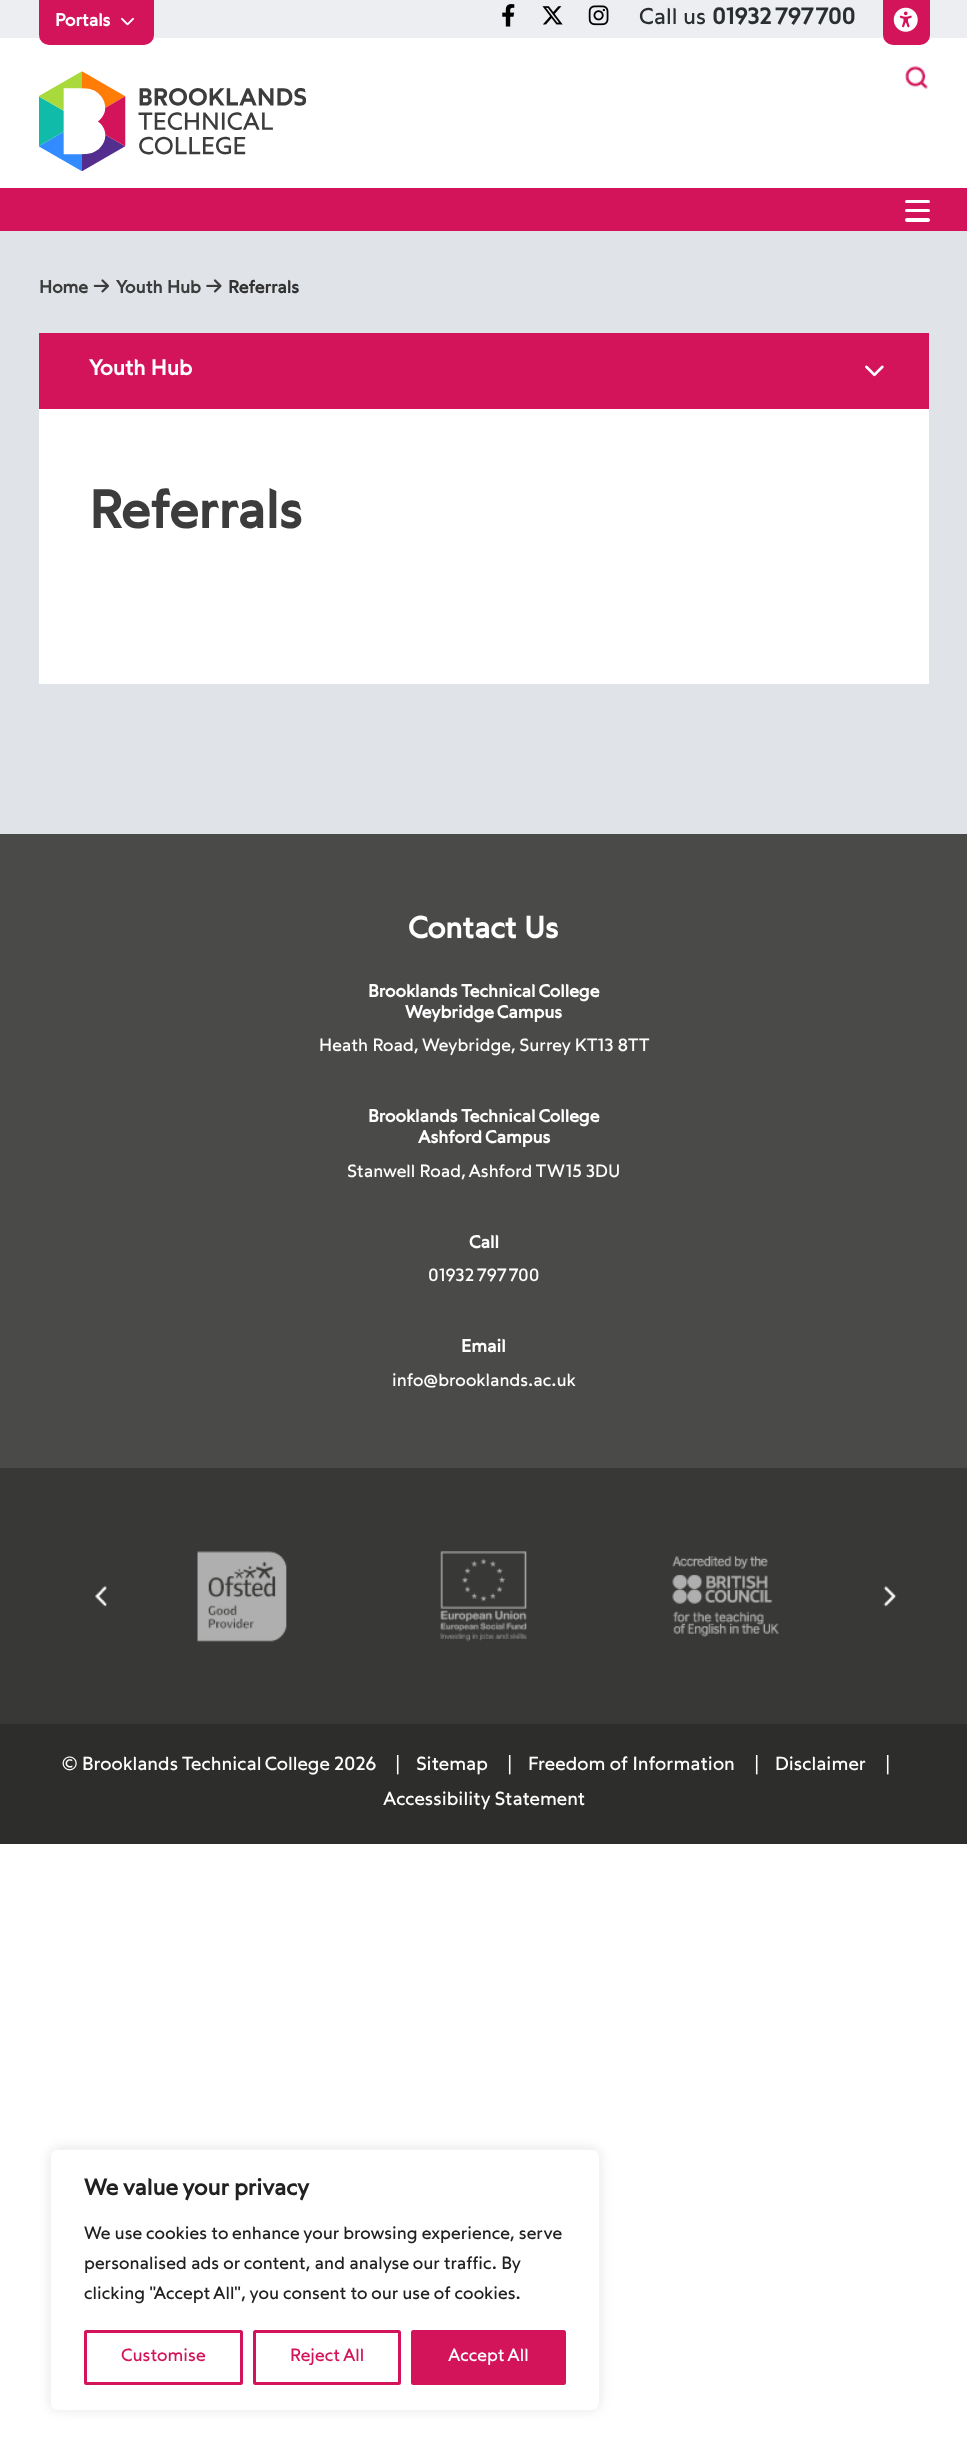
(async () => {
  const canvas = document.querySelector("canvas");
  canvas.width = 967;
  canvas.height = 2461;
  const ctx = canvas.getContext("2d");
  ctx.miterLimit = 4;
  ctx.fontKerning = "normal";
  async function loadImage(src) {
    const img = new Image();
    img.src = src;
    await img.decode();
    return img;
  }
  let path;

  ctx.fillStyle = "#ffffff";
  ctx.fillRect(0, 0, 967, 2461);
  ctx.fillStyle = "#eceef1";
  ctx.fillRect(0, 0, 967, 38);
  ctx.fillStyle = "#d3135a";
  ctx.beginPath();
  ctx.roundRect(39, 0, 115, 45, [0, 0, 10, 10]);
  ctx.fill();
  ctx.drawImage(await loadImage("img/1.png"), 121, 17, 13, 9);
  ctx.drawImage(await loadImage("img/2.png"), 502, 4, 13, 23);
  ctx.drawImage(await loadImage("img/3.png"), 542, 6, 21, 19);
  ctx.drawImage(await loadImage("img/4.png"), 588, 5, 21, 21);
  ctx.beginPath();
  ctx.roundRect(883, 0, 47, 45, [0, 0, 10, 10]);
  ctx.fill();
  ctx.drawImage(await loadImage("img/5.png"), 893, 7, 25, 25);
  ctx.drawImage(await loadImage("img/6.png"), 39, 71, 267, 100);
  ctx.drawImage(await loadImage("img/7.png"), 905, 66, 23, 23);
  ctx.fillRect(0, 188, 967, 43);
  ctx.fillStyle = "#ffffff";
  ctx.beginPath();
  ctx.roundRect(905, 200, 25, 3, 1.5);
  ctx.fill();
  ctx.beginPath();
  ctx.roundRect(905, 209, 25, 3, 1.5);
  ctx.fill();
  ctx.beginPath();
  ctx.roundRect(905, 218, 25, 4, 2);
  ctx.fill();
  ctx.fillStyle = "#e0e3e8";
  ctx.fillRect(0, 231, 967, 603);
  ctx.drawImage(await loadImage("img/8.png"), 93, 279, 16, 14);
  ctx.drawImage(await loadImage("img/9.png"), 206, 279, 16, 14);
  ctx.fillStyle = "#d3135a";
  ctx.fillRect(39, 333, 890, 76);
  ctx.drawImage(await loadImage("img/10.png"), 865, 365, 19, 12);
  for (const [x, y, w, h, color] of [
    [39, 409, 890, 275, "#ffffff"],
    [0, 834, 967, 634, "#4a4a49"],
    [0, 1468, 967, 256, "#383837"],
  ]) {
    ctx.fillStyle = color;
    ctx.fillRect(x, y, w, h);
  }
  ctx.drawImage(await loadImage("img/11.png"), 197, 1551, 90, 91);
  ctx.drawImage(await loadImage("img/12.png"), 440, 1551, 87, 91);
  ctx.drawImage(await loadImage("img/13.png"), 672, 1556, 107, 81);
  ctx.drawImage(await loadImage("img/14.png"), 95, 1586, 12, 21);
  ctx.drawImage(await loadImage("img/15.png"), 883, 1586, 14, 21);
  ctx.fillStyle = "#2d2d2c";
  ctx.fillRect(0, 1724, 967, 120);
  ctx.save();
  path = new Path2D("M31 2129H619V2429H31ZM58 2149H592C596.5 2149 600 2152.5 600 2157V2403C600 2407.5 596.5 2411 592 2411H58C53.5 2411 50 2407.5 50 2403V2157C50 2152.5 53.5 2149 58 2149Z");
  ctx.clip(path, "evenodd");
  ctx.fillStyle = "rgba(172, 171, 171, 0.3)";
  ctx.filter = "blur(6px)";
  ctx.beginPath();
  ctx.roundRect(50, 2148, 550, 262, 8);
  ctx.fill();
  ctx.filter = "none";
  ctx.restore();
  ctx.beginPath();
  ctx.roundRect(50.5, 2149.5, 549, 261, 7.5);
  ctx.strokeStyle = "#f4f4f4";
  ctx.stroke();
  ctx.beginPath();
  ctx.roundRect(85.5, 2331.5, 156, 52, 1);
  ctx.strokeStyle = "#d3135a";
  ctx.lineWidth = 3;
  ctx.stroke();
  ctx.beginPath();
  ctx.roundRect(254.5, 2331.5, 145, 52, 1);
  ctx.stroke();
  ctx.fillStyle = "#d3135a";
  ctx.beginPath();
  ctx.roundRect(412.5, 2331.5, 152, 52, 1);
  ctx.fill();
  ctx.stroke();
  ctx.font = "bold 17.5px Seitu";
  ctx.fillStyle = "#ffffff";
  ctx.fillText("Portals", 55, 26);
  ctx.font = "22.5px Seitu";
  ctx.fillStyle = "#2b2e30";
  ctx.fillText("Call us", 639, 24);
  ctx.font = "bold 22.5px Seitu";
  ctx.fillText("01932 797 700", 712, 24);
  ctx.font = "bold 17.5px Seitu";
  ctx.fillStyle = "#3c3c3c";
  ctx.fillText("Home", 39, 293);
  ctx.fillText("Youth Hub", 116, 293);
  ctx.fillStyle = "#323233";
  ctx.fillText("Referrals", 228, 293);
  ctx.font = "bold 21.25px Seitu";
  ctx.fillStyle = "#ffffff";
  ctx.fillText("Youth Hub", 89, 375);
  ctx.font = "bold 52.5px Seitu";
  ctx.fillStyle = "#3c3c3c";
  ctx.fillText("Referrals", 89, 528);
  ctx.font = "bold 30px Seitu";
  ctx.fillStyle = "#ffffff";
  ctx.fillText("Contact Us", 408, 938);
  ctx.font = "bold 17.5px Seitu";
  ctx.fillText("Brooklands Technical College", 368, 997);
  ctx.fillText("Weybridge Campus", 405, 1018);
  ctx.font = "17.5px Seitu";
  ctx.fillText("Heath Road, Weybridge, Surrey KT13 8TT", 319, 1051);
  ctx.font = "bold 17.5px Seitu";
  ctx.fillText("Brooklands Technical College", 368, 1122);
  ctx.fillText("Ashford Campus", 418, 1143);
  ctx.font = "17.5px Seitu";
  ctx.fillText("Stanwell Road, Ashford TW15 3DU", 347, 1177);
  ctx.font = "bold 17.5px Seitu";
  ctx.fillText("Call", 469, 1248);
  ctx.font = "17.5px Seitu";
  ctx.fillText("01932 797 700", 428, 1281);
  ctx.font = "bold 17.5px Seitu";
  ctx.fillText("Email", 461, 1352);
  ctx.font = "17.5px Seitu";
  ctx.fillText("info@brooklands.ac.uk", 392, 1386);
  ctx.font = "18.75px Seitu";
  for (const [text, x, y] of [
    ["© Brooklands Technical College", 62, 1770],
    ["2026", 334, 1770],
    ["|", 395, 1770],
    ["Sitemap", 416, 1770],
    ["|", 507, 1770],
    ["Freedom of Information", 528, 1770],
    ["|", 754, 1770],
    ["Disclaimer", 775, 1770],
    ["|", 885, 1770],
    ["Accessibility Statement", 383, 1805],
  ]) {
    ctx.fillText(text, x, y);
  }
  ctx.font = "bold 22.5px Seitu";
  ctx.fillStyle = "#212121";
  ctx.fillText("We value your privacy", 84, 2195);
  ctx.font = "17.5px Seitu";
  for (const [text, x, y] of [
    ["We use cookies to enhance your browsing experience, serve", 84, 2239],
    ["personalised ads or content, and analyse our traffic. By", 84, 2269],
    ["clicking \"Accept All\", you consent to our use of cookies.", 84, 2299],
  ]) {
    ctx.fillText(text, x, y);
  }
  ctx.fillStyle = "#d3135a";
  ctx.fillText("Customise", 121, 2361);
  ctx.fillText("Reject All", 290, 2361);
  ctx.fillStyle = "#ffffff";
  ctx.fillText("Accept All", 448, 2361);
})();
